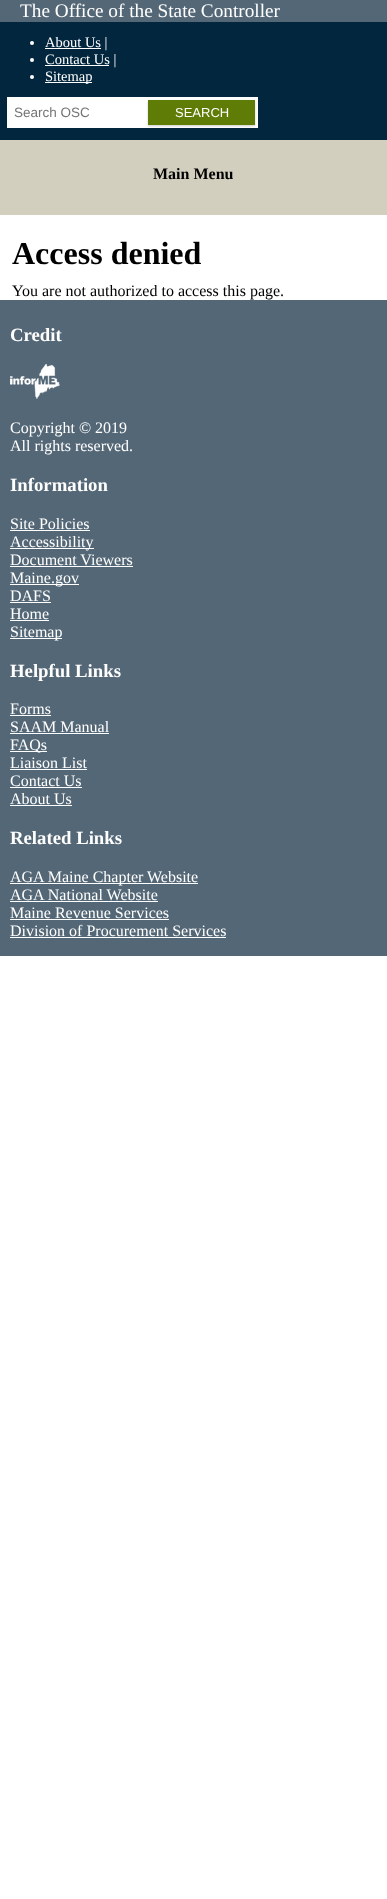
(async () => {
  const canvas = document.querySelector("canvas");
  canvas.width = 387;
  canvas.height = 1899;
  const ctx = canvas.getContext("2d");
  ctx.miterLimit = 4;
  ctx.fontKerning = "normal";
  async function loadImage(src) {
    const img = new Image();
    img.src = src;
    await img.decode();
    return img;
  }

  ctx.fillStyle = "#ffffff";
  ctx.fillRect(0, 0, 387, 1899);
  ctx.fillStyle = "#546776";
  ctx.fillRect(0, 0, 387, 22);
  ctx.fillStyle = "#02263d";
  ctx.fillRect(0, 22, 387, 118);
  ctx.fillStyle = "#ffffff";
  ctx.beginPath();
  ctx.arc(32, 43, 2, 0, Math.PI * 2);
  ctx.fill();
  ctx.fillRect(45, 48, 56, 1);
  ctx.beginPath();
  ctx.arc(32, 60, 2, 0, Math.PI * 2);
  ctx.fill();
  ctx.fillRect(45, 65, 64, 1);
  ctx.beginPath();
  ctx.arc(32, 77, 2, 0, Math.PI * 2);
  ctx.fill();
  ctx.fillRect(45, 82, 47, 1);
  ctx.fillRect(7, 97, 251, 31);
  ctx.fillStyle = "rgba(0, 0, 0, 0.2)";
  ctx.filter = "blur(1px)";
  ctx.beginPath();
  ctx.rect(148, 101, 107, 25);
  ctx.fill();
  ctx.filter = "none";
  for (const [x, y, w, h, color] of [
    [148, 100, 107, 25, "#5f7c06"],
    [0, 140, 387, 75, "#d2cfbe"],
    [0, 300, 387, 656, "#546776"],
  ]) {
    ctx.fillStyle = color;
    ctx.fillRect(x, y, w, h);
  }
  ctx.drawImage(await loadImage("img/1.png"), 10, 364, 50, 35);
  for (const [x, y, w, h, color] of [
    [10, 530, 80, 1, "#ffffff"],
    [10, 548, 84, 1, "#ffffff"],
    [10, 566, 123, 1, "#ffffff"],
    [10, 584, 69, 1, "#ffffff"],
    [10, 602, 41, 1, "#ffffff"],
    [10, 620, 39, 1, "#ffffff"],
    [10, 638, 52, 1, "#ffffff"],
    [10, 715, 41, 1, "#ffffff"],
    [10, 733, 99, 1, "#ffffff"],
    [10, 751, 37, 1, "#ffffff"],
    [10, 769, 77, 1, "#ffffff"],
    [10, 787, 72, 1, "#ffffff"],
    [10, 805, 62, 1, "#ffffff"],
    [10, 883, 188, 1, "#ffffff"],
    [10, 901, 148, 1, "#ffffff"],
    [10, 919, 159, 1, "#ffffff"],
    [10, 937, 216, 1, "#ffffff"],
  ]) {
    ctx.fillStyle = color;
    ctx.fillRect(x, y, w, h);
  }
  ctx.font = "19.25px Liberation Serif";
  ctx.fillText("The Office of the State Controller", 20, 17);
  ctx.font = "14.5px Liberation Serif";
  for (const [text, x, y] of [
    ["About Us |", 45, 47],
    ["Contact Us |", 45, 64],
    ["Sitemap", 45, 81],
  ]) {
    ctx.fillText(text, x, y);
  }
  ctx.font = "13.5px Liberation Sans";
  ctx.fillStyle = "#757575";
  ctx.fillText("Search OSC", 14, 117);
  ctx.font = "13px Liberation Sans";
  ctx.fillStyle = "#ffffff";
  ctx.fillText("SEARCH", 175, 117);
  ctx.font = "bold 16px Liberation Serif";
  ctx.fillStyle = "#000000";
  ctx.fillText("Main Menu", 153, 179);
  ctx.font = "bold 32px Liberation Serif";
  ctx.fillText("Access denied", 12, 264);
  ctx.font = "16px Liberation Serif";
  ctx.fillText("You are not authorized to access this page.", 12, 296);
  ctx.font = "bold 18.75px Liberation Serif";
  ctx.fillStyle = "#ffffff";
  ctx.fillText("Credit", 10, 341);
  ctx.font = "16px Liberation Serif";
  ctx.fillText("Copyright © 2019", 10, 433);
  ctx.fillText("All rights reserved.", 10, 451);
  ctx.font = "bold 18.75px Liberation Serif";
  ctx.fillText("Information", 10, 491);
  ctx.font = "16px Liberation Serif";
  for (const [text, x, y] of [
    ["Site Policies", 10, 529],
    ["Accessibility", 10, 547],
    ["Document Viewers", 10, 565],
    ["Maine.gov", 10, 583],
    ["DAFS", 10, 601],
    ["Home", 10, 619],
    ["Sitemap", 10, 637],
  ]) {
    ctx.fillText(text, x, y);
  }
  ctx.font = "bold 18.75px Liberation Serif";
  ctx.fillText("Helpful Links", 10, 677);
  ctx.font = "16px Liberation Serif";
  for (const [text, x, y] of [
    ["Forms", 10, 714],
    ["SAAM Manual", 10, 732],
    ["FAQs", 10, 750],
    ["Liaison List", 10, 768],
    ["Contact Us", 10, 786],
    ["About Us", 10, 804],
  ]) {
    ctx.fillText(text, x, y);
  }
  ctx.font = "bold 18.75px Liberation Serif";
  ctx.fillText("Related Links", 10, 844);
  ctx.font = "16px Liberation Serif";
  for (const [text, x, y] of [
    ["AGA Maine Chapter Website", 10, 882],
    ["AGA National Website", 10, 900],
    ["Maine Revenue Services", 10, 918],
    ["Division of Procurement Services", 10, 936],
  ]) {
    ctx.fillText(text, x, y);
  }
})();
